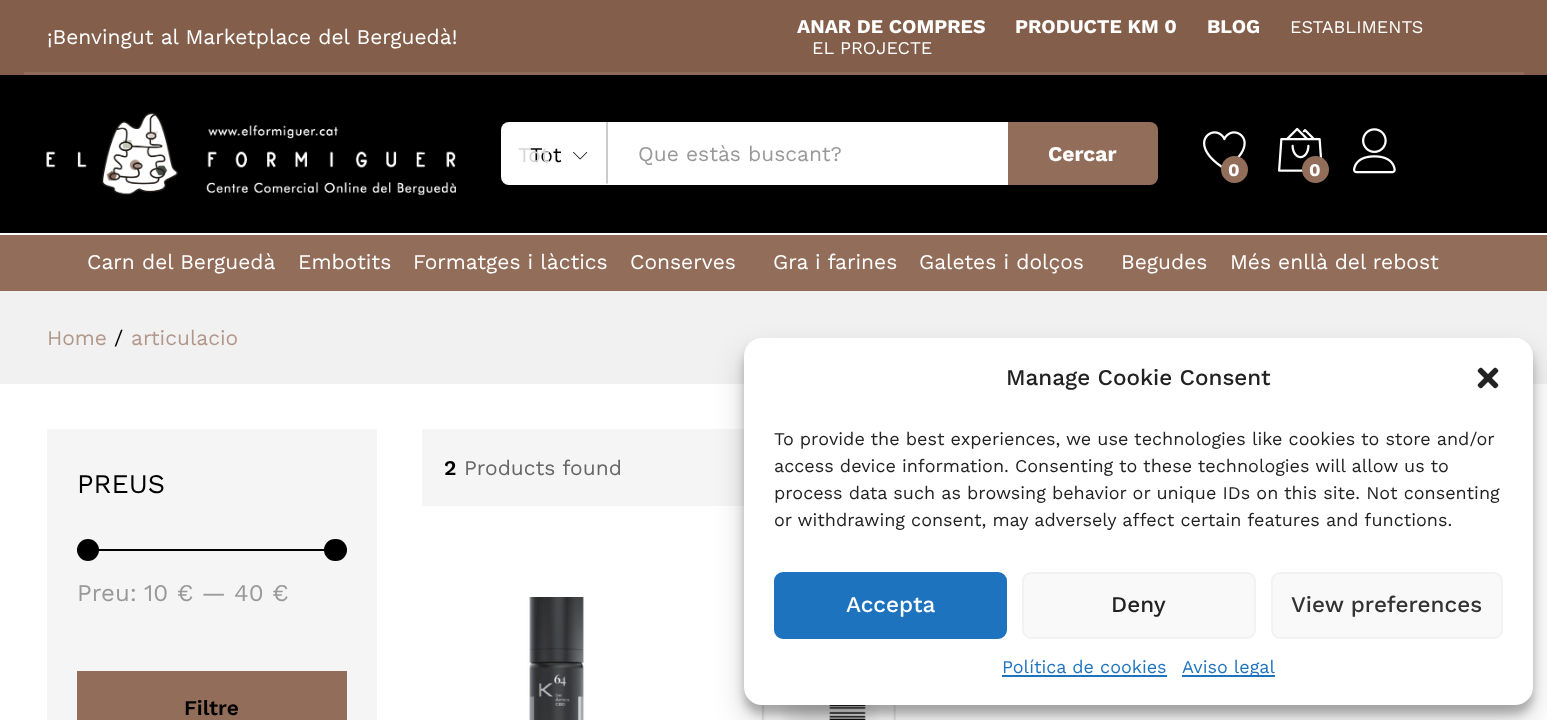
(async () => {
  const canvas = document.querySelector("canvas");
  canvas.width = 1547;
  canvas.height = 720;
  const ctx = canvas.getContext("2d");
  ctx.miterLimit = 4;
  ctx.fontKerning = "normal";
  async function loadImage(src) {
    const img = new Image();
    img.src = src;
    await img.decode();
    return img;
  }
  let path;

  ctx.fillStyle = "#ffffff";
  ctx.fillRect(0, 0, 1547, 720);
  for (const [x, y, w, h, color] of [
    [0, 0, 1547, 75, "#835e4b"],
    [24, 72, 1500, 3, "#926c5a"],
    [0, 75, 1547, 158, "#000000"],
  ]) {
    ctx.fillStyle = color;
    ctx.fillRect(x, y, w, h);
  }
  ctx.drawImage(await loadImage("img/1.png"), 46, 112, 410, 83);
  ctx.fillStyle = "#ffffff";
  ctx.beginPath();
  ctx.roundRect(501, 122, 107, 63, [8, 0, 0, 8]);
  ctx.fill();
  ctx.fillStyle = "#cccccc";
  path = new Path2D("M608 184L606 183V123L607 122H608Z");
  ctx.fill(path);
  ctx.drawImage(await loadImage("img/2.png"), 573, 151, 15, 9);
  ctx.fillStyle = "#ffffff";
  ctx.fillRect(608, 122, 400, 63);
  ctx.fillStyle = "#926d5a";
  ctx.beginPath();
  ctx.roundRect(1008, 122, 150, 63, [0, 8, 8, 0]);
  ctx.fill();
  ctx.drawImage(await loadImage("img/3.png"), 1203, 131, 43, 38);
  ctx.beginPath();
  ctx.arc(1234.5, 169.5, 13.5, 0, Math.PI * 2);
  ctx.fill();
  ctx.drawImage(await loadImage("img/4.png"), 1278, 127, 45, 45);
  ctx.beginPath();
  ctx.arc(1315.5, 169.5, 13.5, 0, Math.PI * 2);
  ctx.fill();
  ctx.drawImage(await loadImage("img/5.png"), 1353, 128, 43, 46);
  for (const [x, y, w, h, color] of [
    [0, 235, 1547, 56, "#926d5a"],
    [0, 291, 1547, 93, "#f1f1f1"],
    [422, 429, 322, 77, "#f5f5f5"],
  ]) {
    ctx.fillStyle = color;
    ctx.fillRect(x, y, w, h);
  }
  ctx.drawImage(await loadImage("img/6.png"), 527, 597, 58, 123);
  ctx.drawImage(await loadImage("img/7.png"), 761, 704, 135, 16);
  ctx.fillRect(47, 429, 330, 291);
  ctx.fillStyle = "#000000";
  ctx.fillRect(77, 549, 247, 2);
  ctx.beginPath();
  ctx.arc(88, 550, 11, 0, Math.PI * 2);
  ctx.fill();
  ctx.beginPath();
  ctx.roundRect(324, 539, 23, 22, 11);
  ctx.fill();
  ctx.fillStyle = "#926d5a";
  ctx.fillRect(77, 671, 270, 49);
  ctx.fillStyle = "rgba(0, 0, 0, 0.23)";
  ctx.filter = "blur(4.5px)";
  ctx.beginPath();
  ctx.roundRect(744, 347, 789, 367, 18);
  ctx.fill();
  ctx.filter = "none";
  ctx.fillStyle = "rgba(0, 0, 0, 0.19)";
  ctx.filter = "blur(15px)";
  ctx.beginPath();
  ctx.roundRect(744, 353, 789, 367, 18);
  ctx.fill();
  ctx.filter = "none";
  ctx.fillStyle = "#ffffff";
  ctx.beginPath();
  ctx.roundRect(744, 338, 789, 367, 18);
  ctx.fill();
  ctx.drawImage(await loadImage("img/8.png"), 1477, 367, 22, 22);
  ctx.fillStyle = "#1e73be";
  ctx.beginPath();
  ctx.roundRect(775, 573, 231, 65, 8);
  ctx.fill();
  ctx.strokeStyle = "#1e73be";
  ctx.lineWidth = 2;
  ctx.stroke();
  ctx.fillStyle = "#f9f9f9";
  ctx.beginPath();
  ctx.roundRect(1023, 573, 232, 65, 8);
  ctx.fill();
  ctx.strokeStyle = "#f2f2f2";
  ctx.stroke();
  ctx.beginPath();
  ctx.roundRect(1272, 573, 230, 65, 8);
  ctx.fill();
  ctx.stroke();
  ctx.fillStyle = "#1e73be";
  ctx.fillRect(1002, 675, 165, 2);
  ctx.fillRect(1182, 675, 93, 2);
  ctx.font = "21px Work Sans";
  ctx.fillStyle = "#ffffff";
  ctx.fillText("¡Benvingut al Marketplace del Berguedà!", 47, 44);
  ctx.font = "bold 19.5px Work Sans";
  for (const [text, x, y] of [
    ["ANAR DE COMPRES", 797, 33],
    ["PRODUCTE KM 0", 1015, 33],
    ["BLOG", 1207, 33],
  ]) {
    ctx.fillText(text, x, y);
  }
  ctx.font = "18px Work Sans";
  ctx.fillText("ESTABLIMENTS", 1290, 33);
  ctx.fillText("EL PROJECTE", 812, 54);
  ctx.font = "21px Work Sans";
  ctx.fillStyle = "#000000";
  ctx.fillText("Tot", 530, 162);
  ctx.fillStyle = "#d5d5d5";
  ctx.fillText("Tot", 518, 162);
  ctx.fillStyle = "#999999";
  ctx.fillText("Que estàs buscant?", 638, 161);
  ctx.font = "bold 21px Work Sans";
  ctx.fillStyle = "#ffffff";
  ctx.fillText("Cercar", 1048, 161);
  ctx.font = "bold 18px Work Sans";
  ctx.fillText("0", 1228, 176);
  ctx.fillText("0", 1309, 176);
  ctx.font = "21px Work Sans";
  for (const [text, x, y] of [
    ["Carn del Berguedà", 87, 269],
    ["Embotits", 298, 269],
    ["Formatges i làctics", 413, 269],
    ["Conserves", 630, 269],
    ["Gra i farines", 773, 269],
    ["Galetes i dolços", 919, 269],
    ["Begudes", 1121, 269],
    ["Més enllà del rebost", 1230, 269],
  ]) {
    ctx.fillText(text, x, y);
  }
  ctx.fillStyle = "#b2988b";
  ctx.fillText("Home", 47, 345);
  ctx.fillStyle = "#000000";
  ctx.fillText("/", 114, 345);
  ctx.fillStyle = "#b2988b";
  ctx.fillText("articulacio", 131, 345);
  ctx.font = "600 21px Work Sans";
  ctx.fillStyle = "#000000";
  ctx.fillText("2", 444, 475);
  ctx.font = "21px Work Sans";
  ctx.fillStyle = "#666666";
  ctx.fillText("Products found", 464, 475);
  ctx.font = "27px Work Sans";
  ctx.fillStyle = "#000000";
  ctx.fillText("PREUS", 77, 493);
  ctx.font = "24px Work Sans";
  ctx.fillStyle = "#999999";
  ctx.fillText("Preu:", 77, 601);
  ctx.fillText("10 € — 40 €", 144, 601);
  ctx.font = "600 21px Work Sans";
  ctx.fillStyle = "#000000";
  ctx.fillText("Filtre", 184, 715);
  ctx.font = "500 22.5px Work Sans";
  ctx.fillStyle = "#222222";
  ctx.fillText("Manage Cookie Consent", 1006, 385);
  ctx.font = "18px Work Sans";
  for (const [text, x, y] of [
    ["To provide the best experiences, we use technologies like cookies to store and/or", 774, 445],
    ["access device information. Consenting to these technologies will allow us to", 774, 472],
    ["process data such as browsing behavior or unique IDs on this site. Not consenting", 774, 499],
    ["or withdrawing consent, may adversely affect certain features and functions.", 774, 526],
  ]) {
    ctx.fillText(text, x, y);
  }
  ctx.font = "500 22.5px Work Sans";
  ctx.fillStyle = "#ffffff";
  ctx.fillText("Accepta", 846, 612);
  ctx.fillStyle = "#222222";
  ctx.fillText("Deny", 1111, 612);
  ctx.fillStyle = "#333333";
  ctx.fillText("View preferences", 1291, 612);
  ctx.font = "18px Work Sans";
  ctx.fillStyle = "#1e73be";
  ctx.fillText("Política de cookies", 1002, 673);
  ctx.fillText("Aviso legal", 1182, 673);
})();
